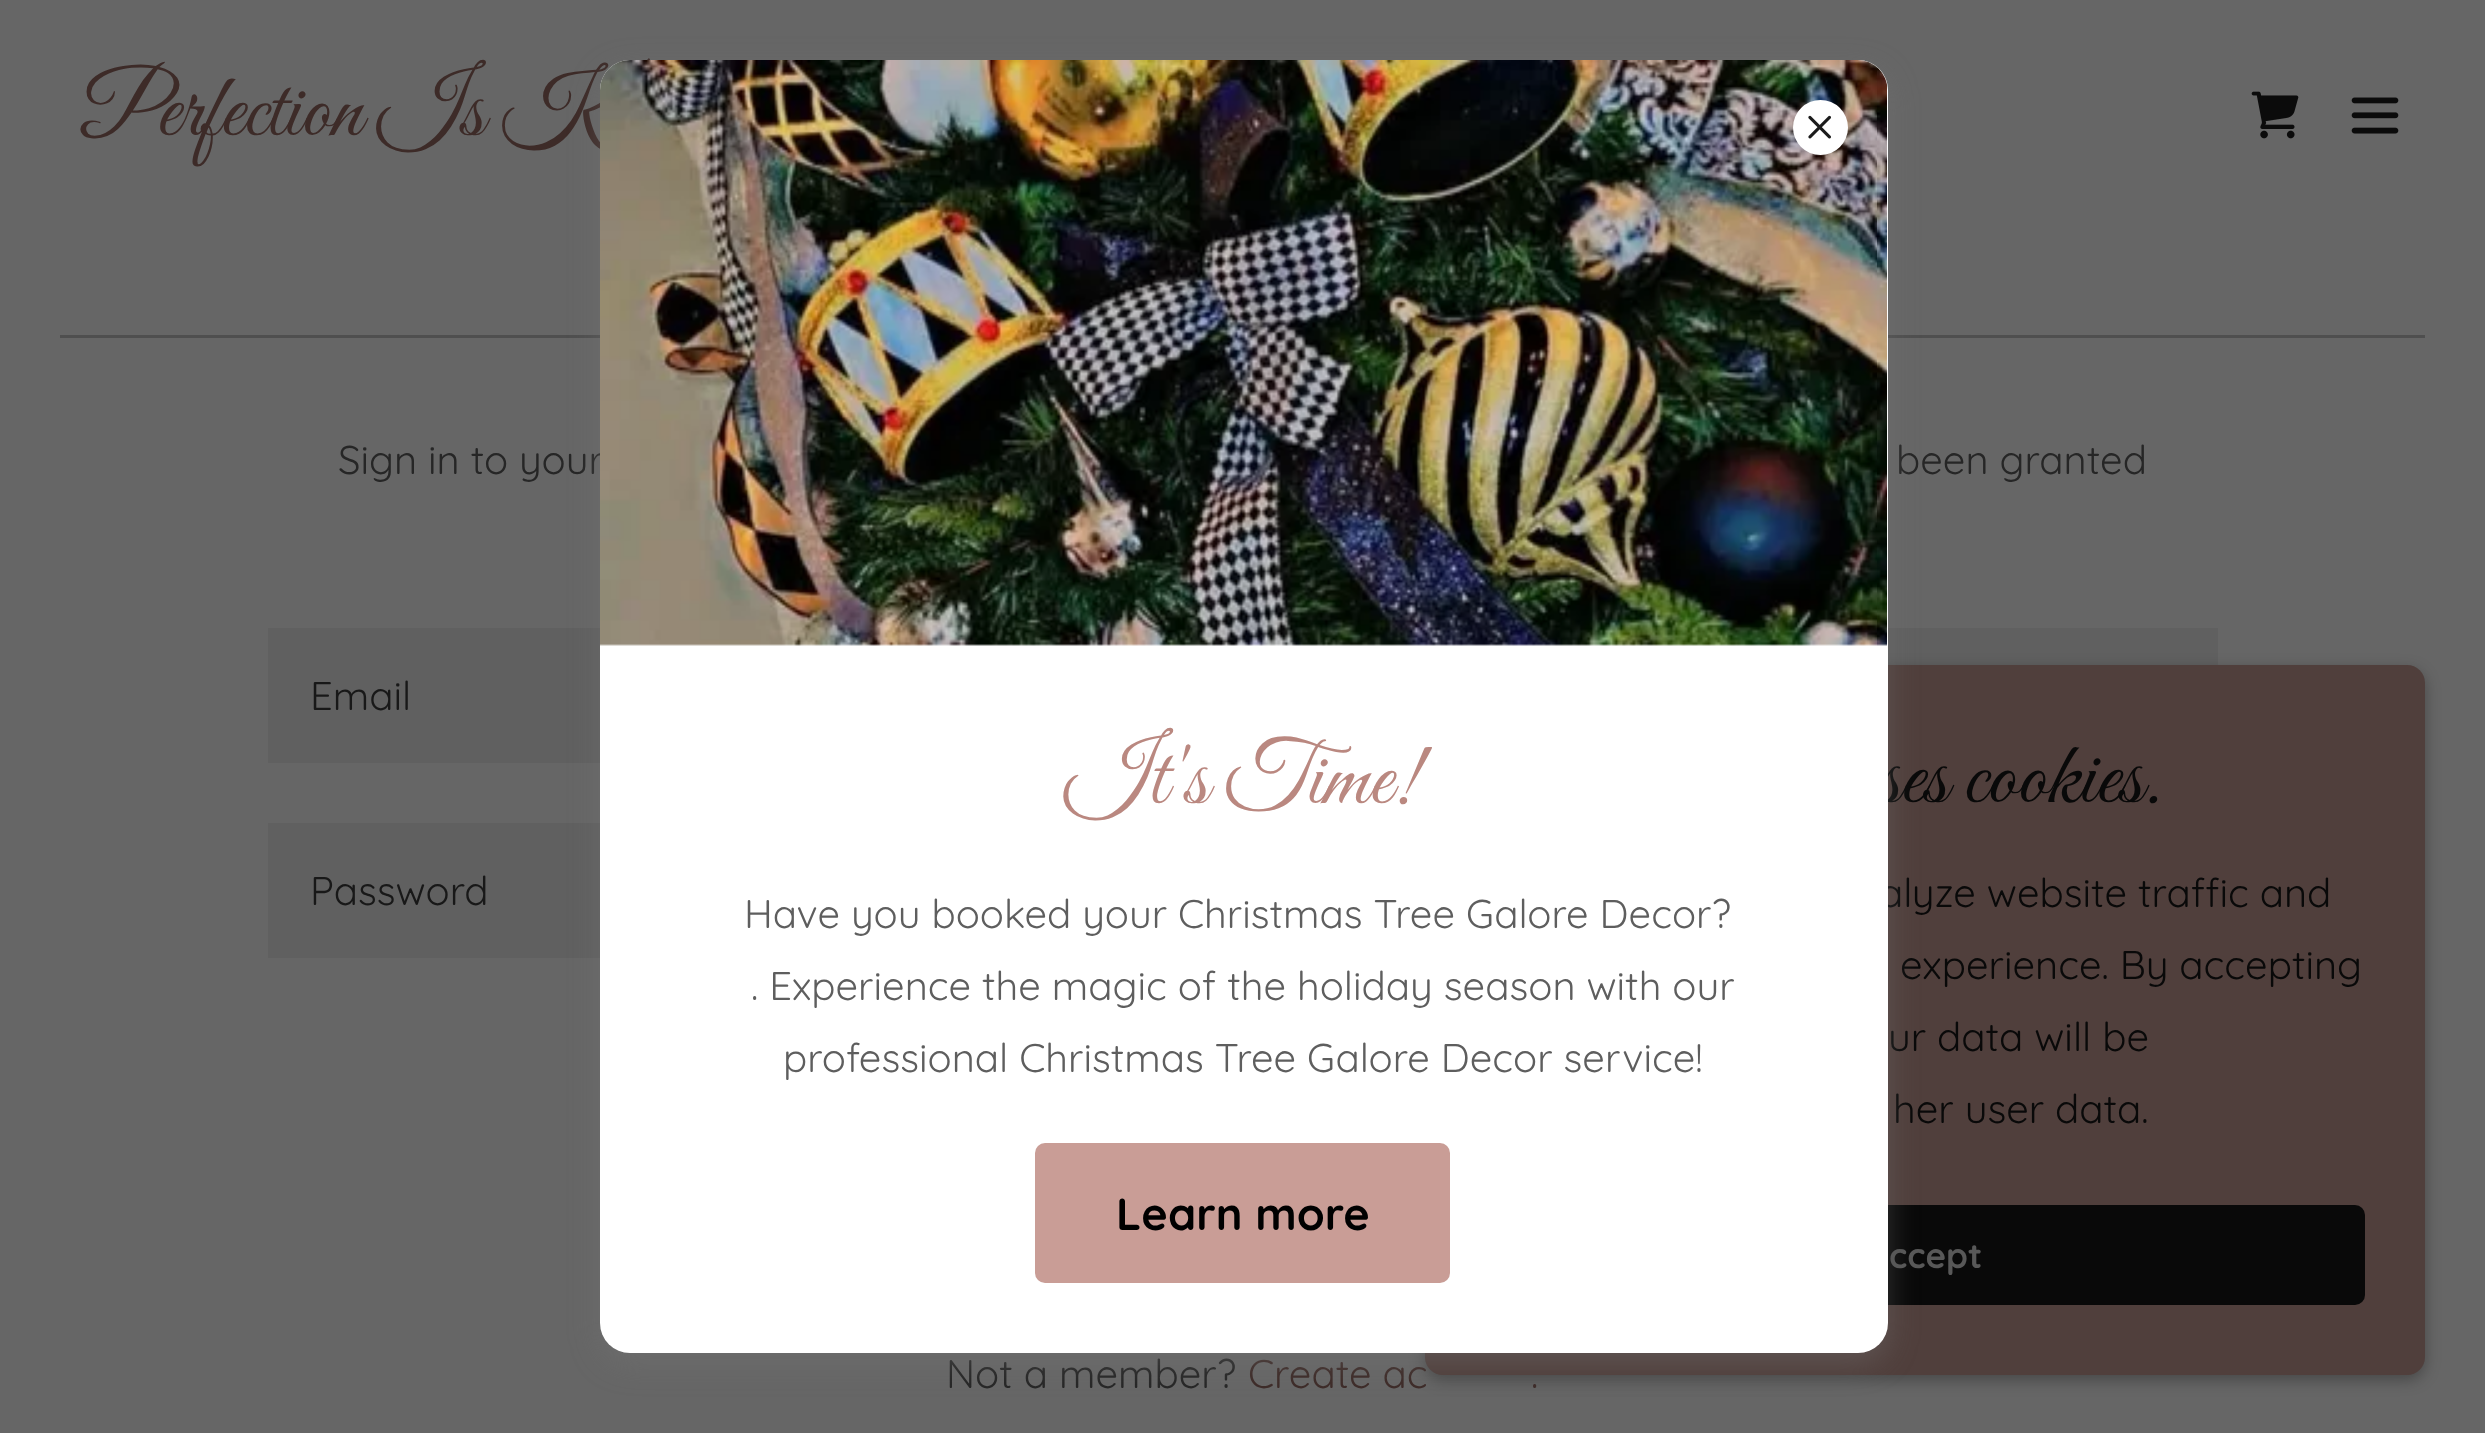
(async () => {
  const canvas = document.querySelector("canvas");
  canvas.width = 2485;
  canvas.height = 1433;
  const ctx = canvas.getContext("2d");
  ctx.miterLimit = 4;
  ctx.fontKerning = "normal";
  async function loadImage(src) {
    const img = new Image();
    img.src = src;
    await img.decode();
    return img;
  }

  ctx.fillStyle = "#666666";
  ctx.fillRect(0, 0, 2485, 1433);
  ctx.drawImage(await loadImage("img/1.png"), 2251, 91, 48, 48);
  ctx.drawImage(await loadImage("img/2.png"), 2351, 97, 48, 37);
  for (const [x, y, w, h, color] of [
    [60, 335, 540, 3, "#4f4f4f"],
    [1888, 335, 537, 3, "#4f4f4f"],
    [268, 628, 1950, 135, "#606060"],
    [268, 823, 332, 135, "#606060"],
  ]) {
    ctx.fillStyle = color;
    ctx.fillRect(x, y, w, h);
  }
  ctx.fillStyle = "rgba(0, 0, 0, 0.3)";
  ctx.filter = "blur(7.5px)";
  ctx.beginPath();
  ctx.roundRect(1425, 670, 1000, 710, 18);
  ctx.fill();
  ctx.filter = "none";
  ctx.font = "90px Great Vibes";
  ctx.fillStyle = "#3d2b28";
  ctx.fillText("Perfection Is K", 80, 135);
  ctx.font = "40px Quicksand";
  ctx.fillStyle = "#262626";
  ctx.fillText("Sign in to your", 338, 474);
  ctx.fillText("been granted", 1896, 474);
  ctx.fillStyle = "#181818";
  ctx.fillText("Email", 310, 710);
  ctx.fillText("Password", 310, 905);
  ctx.fillStyle = "#262626";
  ctx.fillText("Not a member?", 946, 1388);
  ctx.fillStyle = "#3d2b28";
  ctx.fillText("Create ac", 1248, 1388);
  ctx.fillText(".", 1531, 1388);
  ctx.fillStyle = "#503f3c";
  ctx.beginPath();
  ctx.roundRect(1425, 665, 1000, 710, 18);
  ctx.fill();
  ctx.font = "90px Great Vibes";
  ctx.fillStyle = "#090909";
  ctx.fillText("ses cookies.", 1877, 802);
  ctx.font = "40px Quicksand";
  for (const [text, x, y] of [
    ["alyze website traffic and", 1879, 907],
    ["experience. By accepting", 1900, 979],
    ["ur data will be", 1888, 1051],
    ["her user data.", 1893, 1123],
  ]) {
    ctx.fillText(text, x, y);
  }
  ctx.beginPath();
  ctx.roundRect(1485, 1205, 880, 100, 10);
  ctx.fill();
  ctx.fillStyle = "rgba(117, 117, 117, 0.4)";
  ctx.filter = "blur(15px)";
  ctx.beginPath();
  ctx.roundRect(600, 70, 1288, 1293, 30);
  ctx.fill();
  ctx.filter = "none";
  ctx.fillStyle = "#ffffff";
  ctx.beginPath();
  ctx.roundRect(600, 60, 1288, 1293, 30);
  ctx.fill();
  ctx.drawImage(await loadImage("img/4.png"), 600, 60, 1287, 586);
  ctx.beginPath();
  ctx.arc(1820.5, 127.5, 27.5, 0, Math.PI * 2);
  ctx.fill();
  ctx.drawImage(await loadImage("img/3.png"), 1808, 115, 23, 24);
  ctx.fillStyle = "#c99d96";
  ctx.beginPath();
  ctx.roundRect(1035, 1143, 415, 140, 10);
  ctx.fill();
  ctx.font = "bold 45px Quicksand";
  ctx.fillStyle = "#000000";
  ctx.fillText("Learn more", 1116, 1230);
  ctx.font = "40px Quicksand";
  ctx.fillStyle = "#5e5e5e";
  for (const [text, x, y] of [
    ["professional Christmas Tree Galore Decor service!", 783, 1072],
    [". Experience the magic of the holiday season with our", 751, 1000],
    ["Have you booked your Christmas Tree Galore Decor?", 744, 928],
  ]) {
    ctx.fillText(text, x, y);
  }
  ctx.font = "90px Great Vibes";
  ctx.fillStyle = "#ba8880";
  ctx.fillText("It's Time!", 1065, 803);
  ctx.font = "bold 35px Quicksand";
  ctx.fillStyle = "#585858";
  ctx.fillText("ccept", 1889, 1268);
})();
